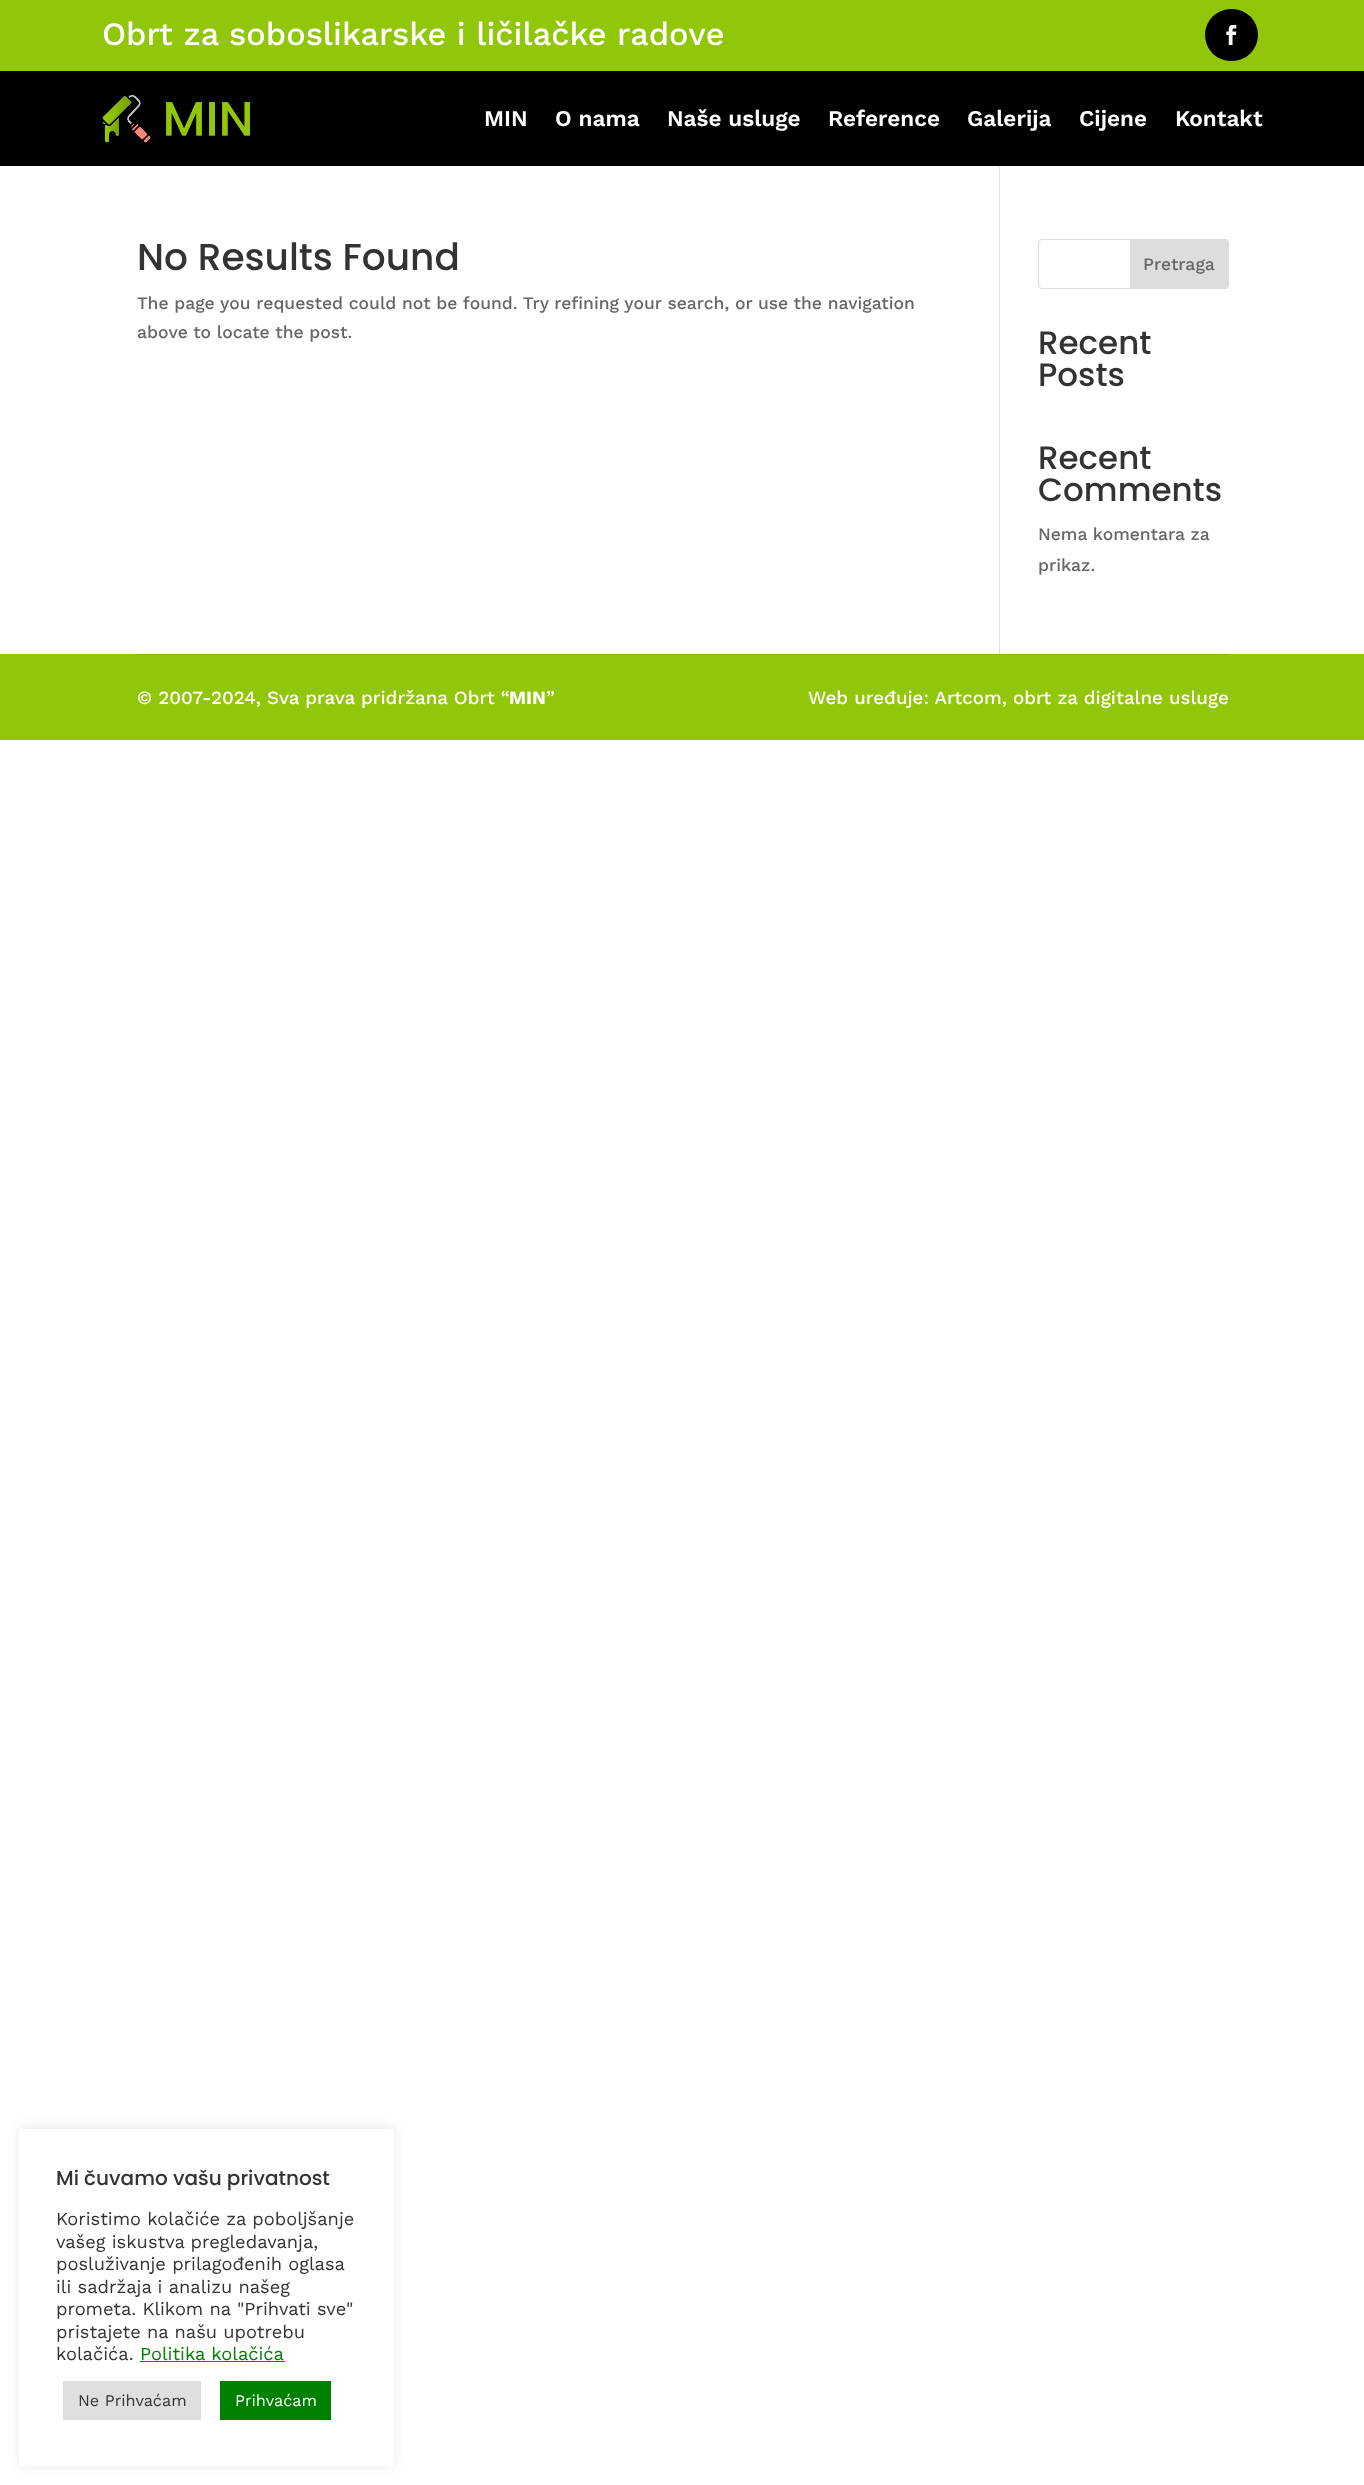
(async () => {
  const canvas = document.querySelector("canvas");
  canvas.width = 1364;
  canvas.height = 2485;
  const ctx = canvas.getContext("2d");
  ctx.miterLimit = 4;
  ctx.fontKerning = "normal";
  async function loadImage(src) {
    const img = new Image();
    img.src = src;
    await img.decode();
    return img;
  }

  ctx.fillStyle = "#ffffff";
  ctx.fillRect(0, 0, 1364, 2485);
  ctx.fillStyle = "#92c60a";
  ctx.fillRect(0, 0, 1364, 71);
  ctx.fillStyle = "#000000";
  ctx.beginPath();
  ctx.roundRect(1205, 9, 53, 52, 26);
  ctx.fill();
  ctx.drawImage(await loadImage("img/1.png"), 1226, 25, 11, 20);
  ctx.fillRect(0, 71, 1364, 95);
  ctx.drawImage(await loadImage("img/2.png"), 102, 95, 148, 48);
  ctx.fillStyle = "#e2e2e2";
  ctx.fillRect(999, 166, 1, 488);
  ctx.beginPath();
  ctx.roundRect(1038.5, 239.5, 190, 49, 3.5);
  ctx.strokeStyle = "#dddddd";
  ctx.stroke();
  ctx.fillStyle = "#dddddd";
  ctx.beginPath();
  ctx.roundRect(1130.5, 239.5, 98, 49, [0, 3.5, 3.5, 0]);
  ctx.fill();
  ctx.stroke();
  ctx.fillStyle = "#92c60a";
  ctx.fillRect(0, 654, 1364, 86);
  ctx.fillStyle = "#85b409";
  ctx.fillRect(136, 654, 1093, 1);
  ctx.fillStyle = "rgba(172, 171, 171, 0.3)";
  ctx.filter = "blur(6px)";
  ctx.beginPath();
  ctx.rect(19, 2128, 375, 337);
  ctx.fill();
  ctx.filter = "none";
  for (const [x, y, w, h, color] of [
    [19, 2129, 375, 337, "#ffffff"],
    [140, 2361, 145, 1, "#008000"],
    [63, 2381, 138, 39, "#dedfe0"],
    [220, 2381, 111, 39, "#008000"],
  ]) {
    ctx.fillStyle = color;
    ctx.fillRect(x, y, w, h);
  }
  ctx.font = "500 32.5px Work Sans";
  ctx.fillStyle = "#ffffff";
  ctx.fillText("Obrt za soboslikarske i ličilačke radove", 102, 45);
  ctx.font = "600 22.5px Work Sans";
  for (const [text, x, y] of [
    ["MIN", 484, 126],
    ["O nama", 555, 126],
    ["Naše usluge", 667, 126],
    ["Reference", 828, 126],
    ["Galerija", 967, 126],
    ["Cijene", 1079, 126],
    ["Kontakt", 1175, 126],
  ]) {
    ctx.fillText(text, x, y);
  }
  ctx.font = "500 37.5px Poppins";
  ctx.fillStyle = "#333333";
  ctx.fillText("No Results Found", 137, 270);
  ctx.font = "500 17.5px Work Sans";
  ctx.fillStyle = "#666666";
  for (const [text, x, y] of [
    ["The page you requested could not be found. Try refining your search, or use the navigation", 137, 309],
    ["above to locate the post.", 137, 338],
    ["Pretraga", 1143, 270],
  ]) {
    ctx.fillText(text, x, y);
  }
  ctx.font = "500 32.5px Poppins";
  ctx.fillStyle = "#333333";
  for (const [text, x, y] of [
    ["Recent", 1038, 354],
    ["Posts", 1038, 386],
    ["Recent", 1038, 469],
    ["Comments", 1038, 501],
  ]) {
    ctx.fillText(text, x, y);
  }
  ctx.font = "500 17.5px Work Sans";
  ctx.fillStyle = "#666666";
  ctx.fillText("Nema komentara za", 1038, 540);
  ctx.fillText("prikaz.", 1038, 571);
  ctx.font = "500 18.75px Work Sans";
  ctx.fillStyle = "#ffffff";
  ctx.fillText("© 2007-2024, Sva prava pridržana Obrt “", 137, 704);
  ctx.font = "bold 18.75px Work Sans";
  ctx.fillText("MIN", 509, 704);
  ctx.font = "500 18.75px Work Sans";
  ctx.fillText("”", 546, 704);
  ctx.fillText("Web uređuje: Artcom, obrt za digitalne usluge", 808, 704);
  ctx.font = "500 20px Poppins";
  ctx.fillStyle = "#333333";
  ctx.fillText("Mi čuvamo vašu privatnost", 56, 2185);
  ctx.font = "18.3px Work Sans";
  for (const [text, x, y] of [
    ["Koristimo kolačiće za poboljšanje", 56, 2225],
    ["vašeg iskustva pregledavanja,", 56, 2248],
    ["posluživanje prilagođenih oglasa", 56, 2270],
    ["ili sadržaja i analizu našeg", 56, 2293],
    ["prometa. Klikom na \"Prihvati sve\"", 56, 2315],
    ["pristajete na našu upotrebu", 56, 2338],
    ["kolačića.", 56, 2360],
  ]) {
    ctx.fillText(text, x, y);
  }
  ctx.fillStyle = "#008000";
  ctx.fillText("Politika kolačića", 140, 2360);
  ctx.font = "16.25px Work Sans";
  ctx.fillStyle = "#333333";
  ctx.fillText("Ne Prihvaćam", 78, 2406);
  ctx.fillStyle = "#ffffff";
  ctx.fillText("Prihvaćam", 235, 2406);
})();
